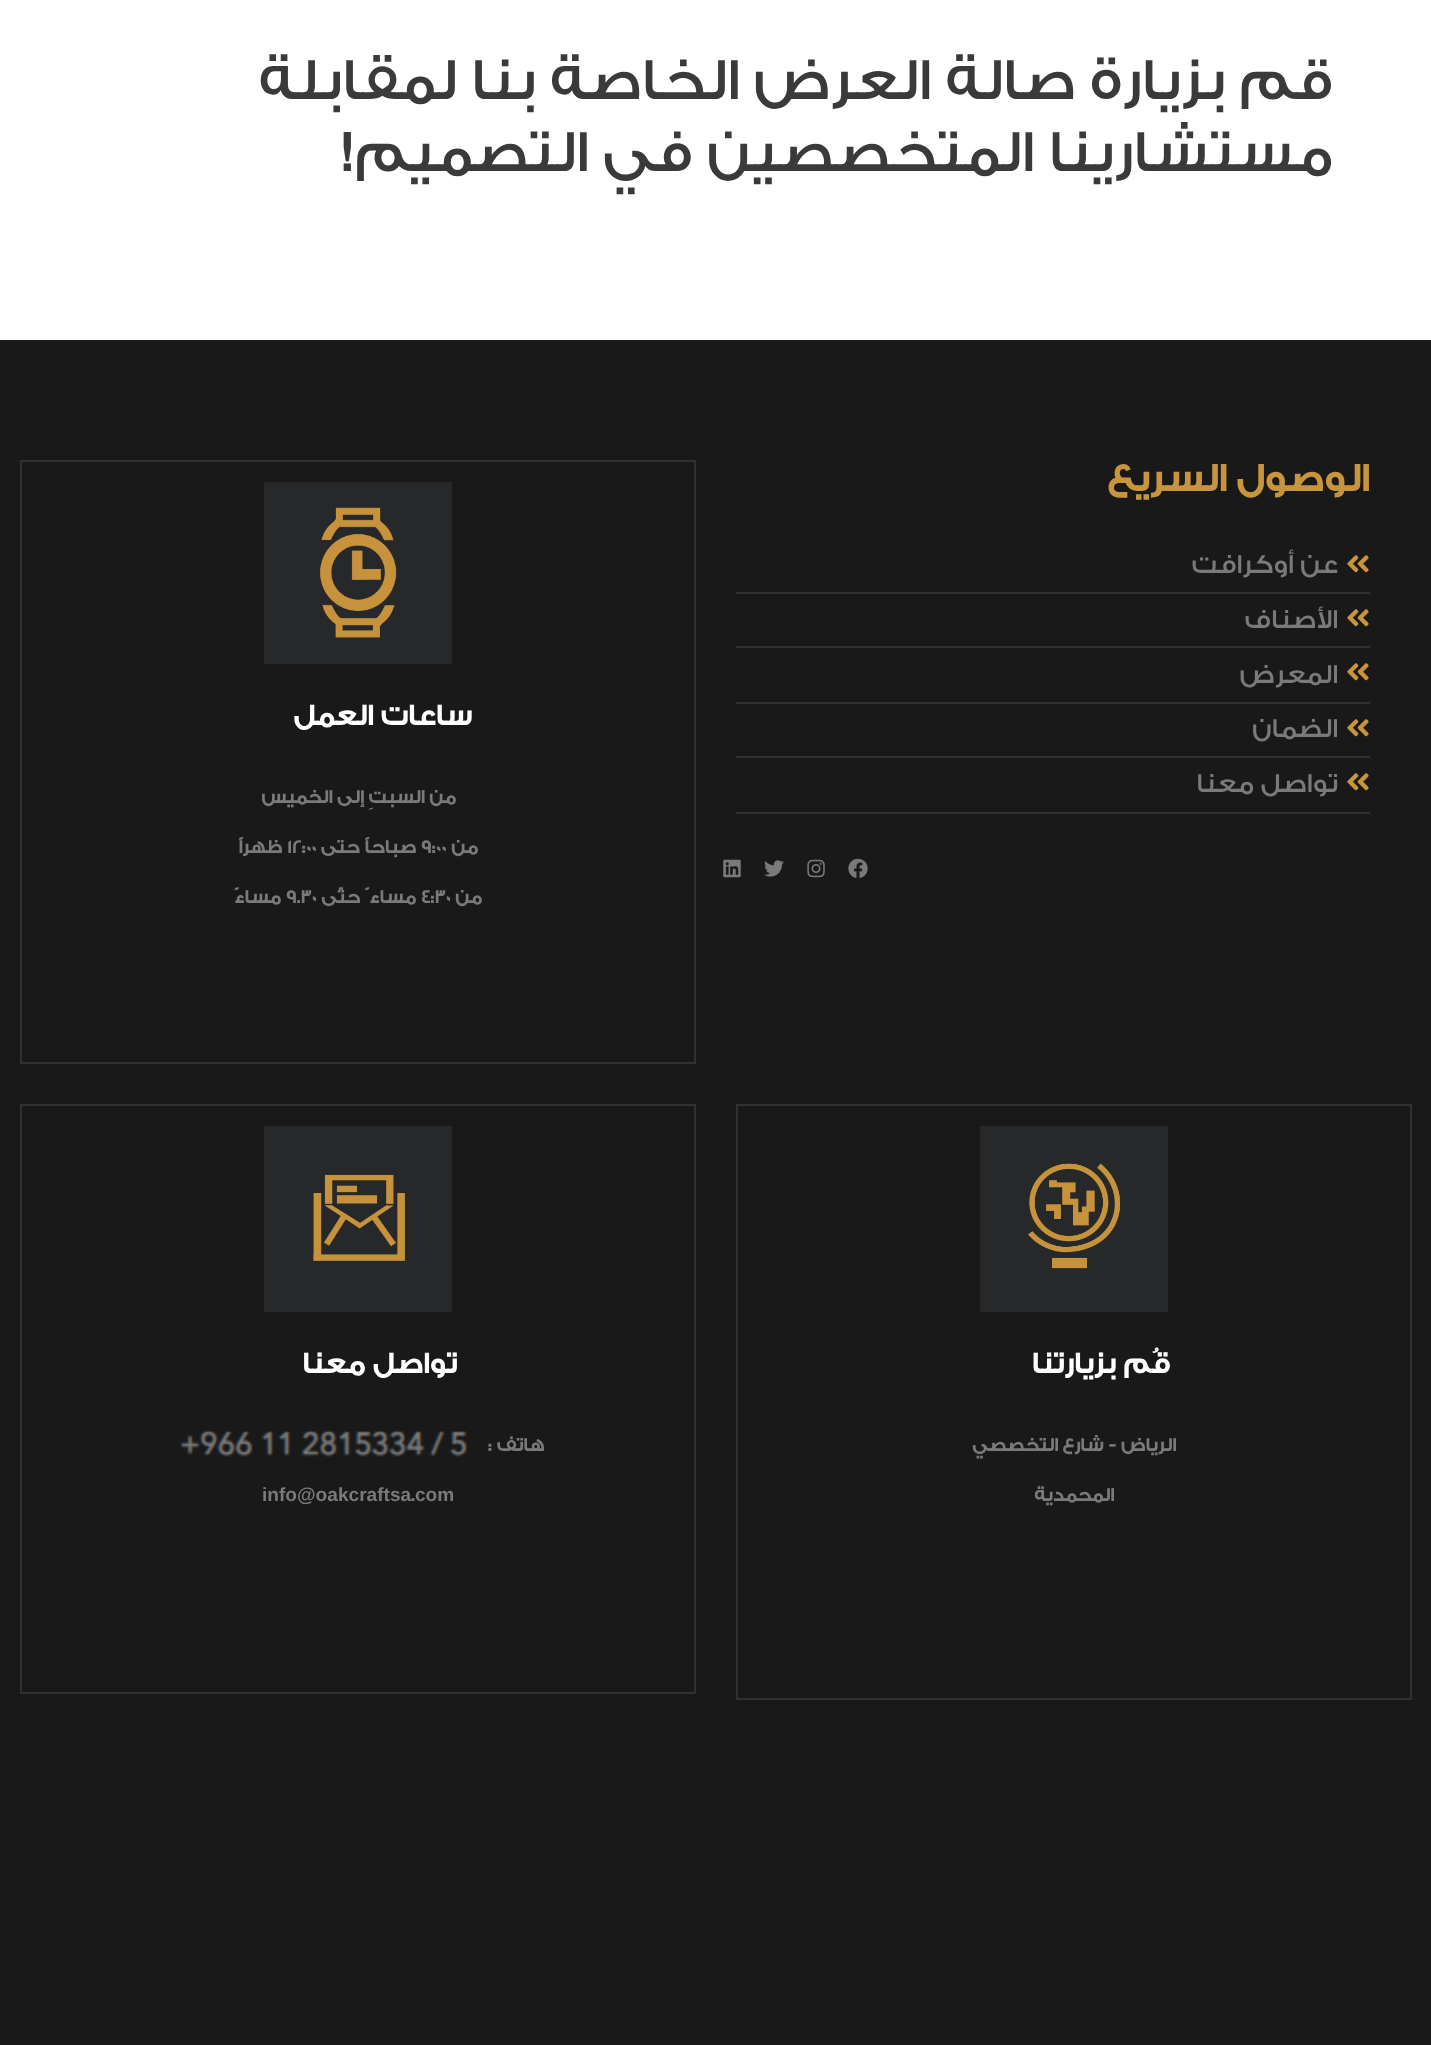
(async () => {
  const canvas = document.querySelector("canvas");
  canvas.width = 1431;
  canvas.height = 2045;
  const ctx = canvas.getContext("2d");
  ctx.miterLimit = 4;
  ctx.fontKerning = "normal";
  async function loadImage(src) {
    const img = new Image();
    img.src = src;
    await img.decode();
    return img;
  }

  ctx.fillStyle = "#ffffff";
  ctx.fillRect(0, 0, 1431, 2045);
  ctx.fillStyle = "#191919";
  ctx.fillRect(0, 340, 1431, 1705);
  ctx.fillStyle = "#313131";
  ctx.fillRect(736, 592, 634, 2);
  ctx.drawImage(await loadImage("img/1.png"), 1347, 555, 22, 18);
  ctx.fillRect(736, 646, 634, 2);
  ctx.drawImage(await loadImage("img/1.png"), 1347, 609, 22, 18);
  ctx.fillRect(736, 702, 634, 2);
  ctx.drawImage(await loadImage("img/1.png"), 1347, 663, 22, 18);
  ctx.fillRect(736, 756, 634, 2);
  ctx.drawImage(await loadImage("img/1.png"), 1347, 719, 22, 18);
  ctx.fillRect(736, 812, 634, 2);
  ctx.drawImage(await loadImage("img/1.png"), 1347, 773, 22, 18);
  ctx.drawImage(await loadImage("img/2.png"), 848, 858, 20, 20);
  ctx.drawImage(await loadImage("img/3.png"), 807, 859, 18, 19);
  ctx.drawImage(await loadImage("img/4.png"), 764, 860, 20, 17);
  ctx.drawImage(await loadImage("img/5.png"), 723, 859, 18, 19);
  ctx.strokeStyle = "#313131";
  ctx.lineWidth = 2;
  ctx.strokeRect(21, 461, 674, 602);
  ctx.fillStyle = "#272829";
  ctx.fillRect(264, 482, 188, 182);
  ctx.drawImage(await loadImage("img/6.png"), 319, 507, 78, 131);
  ctx.strokeRect(737, 1105, 674, 594);
  ctx.fillRect(980, 1126, 188, 186);
  ctx.drawImage(await loadImage("img/7.png"), 1028, 1163, 92, 106);
  ctx.strokeRect(21, 1105, 674, 588);
  ctx.fillRect(264, 1126, 188, 186);
  ctx.drawImage(await loadImage("img/8.png"), 313, 1174, 93, 87);
  ctx.drawImage(await loadImage("img/9.png"), 172, 1430, 296, 27);
  ctx.direction = "rtl";
  ctx.font = "500 60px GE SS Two";
  ctx.fillStyle = "#3a3a3a";
  ctx.fillText("قم بزيارة صالة العرض الخاصة بنا لمقابلة", 1333, 99);
  ctx.fillText("مستشارينا المتخصصين في التصميم!", 1333, 171);
  ctx.font = "bold 40px GE SS Two";
  ctx.fillStyle = "#c8953d";
  ctx.fillText("الوصول السريع", 1369, 491);
  ctx.font = "500 27.5px GE SS Two";
  ctx.fillStyle = "#7a7a7a";
  for (const [text, x, y] of [
    ["عن أوكرافت", 1338, 573],
    ["الأصناف", 1338, 628],
    ["المعرض", 1338, 683],
    ["الضمان", 1338, 737],
    ["تواصل معنا", 1338, 792],
  ]) {
    ctx.fillText(text, x, y);
  }
  ctx.letterSpacing = "2.4px";
  ctx.wordSpacing = "-2px";
  ctx.font = "bold 30px GE SS Two";
  ctx.fillStyle = "#ffffff";
  ctx.fillText("ساعات العمل", 472, 725);
  ctx.letterSpacing = "0px";
  ctx.wordSpacing = "0px";
  ctx.font = "bold 19.1px GE SS Two";
  ctx.fillStyle = "#7a7a7a";
  ctx.fillText("من السبتِ إلى الخميس", 456, 803);
  ctx.fillText("من", 478, 853);
  ctx.direction = "ltr";
  ctx.fillText("9:00", 421, 853);
  ctx.direction = "rtl";
  ctx.fillText("صباحاً حتى", 416, 853);
  ctx.direction = "ltr";
  ctx.fillText("12:00", 287, 853);
  ctx.direction = "rtl";
  ctx.fillText("ظهراً", 282, 853);
  ctx.fillText("من", 482, 903);
  ctx.direction = "ltr";
  ctx.fillText("4:30", 421, 903);
  ctx.direction = "rtl";
  ctx.fillText("مساء ً حتّى", 416, 903);
  ctx.direction = "ltr";
  ctx.fillText("9.30", 286, 903);
  ctx.direction = "rtl";
  ctx.fillText("مساءً", 281, 903);
  ctx.letterSpacing = "2.4px";
  ctx.wordSpacing = "-2px";
  ctx.font = "bold 30px GE SS Two";
  ctx.fillStyle = "#ffffff";
  ctx.fillText("قُم بزيارتنا", 1170, 1373);
  ctx.letterSpacing = "0px";
  ctx.wordSpacing = "0px";
  ctx.font = "bold 19.1px GE SS Two";
  ctx.fillStyle = "#7a7a7a";
  ctx.fillText("الرياض - شارع التخصصي", 1176, 1451);
  ctx.fillText("المحمدية", 1114, 1501);
  ctx.letterSpacing = "2.4px";
  ctx.wordSpacing = "-2px";
  ctx.font = "bold 30px GE SS Two";
  ctx.fillStyle = "#ffffff";
  ctx.fillText("تواصل معنا", 457, 1373);
  ctx.letterSpacing = "0px";
  ctx.wordSpacing = "0px";
  ctx.font = "bold 19.1px GE SS Two";
  ctx.fillStyle = "#7a7a7a";
  ctx.fillText("هاتف :", 544, 1451);
  ctx.direction = "ltr";
  ctx.font = "bold 19.1px Liberation Sans";
  ctx.fillText("com", 415, 1501);
  ctx.fillText("info@oakcraftsa", 262, 1501);
  ctx.font = "bold 19.1px GE SS Two";
  ctx.fillText(".", 411, 1501);
})();
